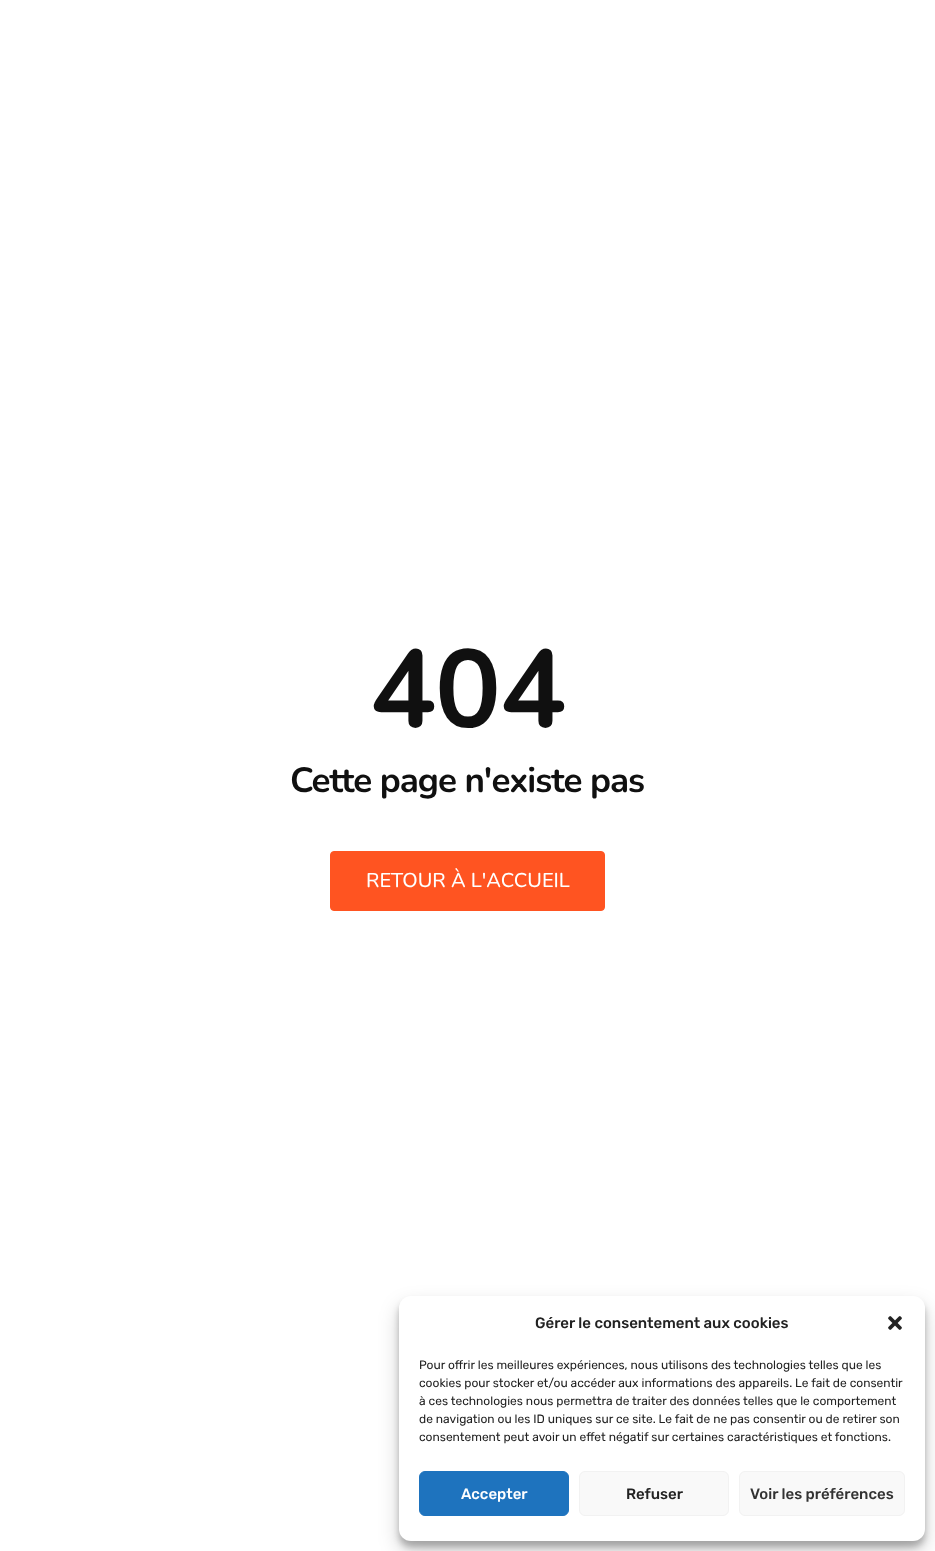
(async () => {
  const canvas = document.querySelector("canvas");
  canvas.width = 935;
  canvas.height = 1551;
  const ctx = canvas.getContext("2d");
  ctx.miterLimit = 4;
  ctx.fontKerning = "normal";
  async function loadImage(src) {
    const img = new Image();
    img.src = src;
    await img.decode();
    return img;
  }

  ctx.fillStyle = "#ffffff";
  ctx.fillRect(0, 0, 935, 1551);
  ctx.fillStyle = "#ff5421";
  ctx.beginPath();
  ctx.roundRect(330.5, 851.5, 274, 59, 3.5);
  ctx.fill();
  ctx.strokeStyle = "#ff5421";
  ctx.stroke();
  ctx.fillStyle = "rgba(0, 0, 0, 0.23)";
  ctx.filter = "blur(3px)";
  ctx.beginPath();
  ctx.roundRect(399, 1302, 526, 245, 12);
  ctx.fill();
  ctx.filter = "none";
  ctx.fillStyle = "rgba(0, 0, 0, 0.19)";
  ctx.filter = "blur(10px)";
  ctx.beginPath();
  ctx.roundRect(399, 1306, 526, 245, 12);
  ctx.fill();
  ctx.filter = "none";
  ctx.fillStyle = "#ffffff";
  ctx.beginPath();
  ctx.roundRect(399, 1296, 526, 245, 12);
  ctx.fill();
  ctx.drawImage(await loadImage("img/1.png"), 888, 1316, 14, 14);
  ctx.fillStyle = "#1e73be";
  ctx.beginPath();
  ctx.roundRect(419.5, 1471.5, 149, 44, 5.5);
  ctx.fill();
  ctx.strokeStyle = "#1e73be";
  ctx.stroke();
  ctx.fillStyle = "#f9f9f9";
  ctx.beginPath();
  ctx.roundRect(579.5, 1471.5, 149, 44, 5.5);
  ctx.fill();
  ctx.strokeStyle = "#f2f2f2";
  ctx.stroke();
  ctx.beginPath();
  ctx.roundRect(739.5, 1471.5, 165, 44, 5.5);
  ctx.fill();
  ctx.stroke();
  ctx.letterSpacing = "-1px";
  ctx.font = "bold 110px Nunito";
  ctx.fillStyle = "#101010";
  ctx.fillText("404", 370, 727);
  ctx.font = "bold 35px Nunito";
  ctx.fillText("Cette page n'existe pas", 290, 792);
  ctx.letterSpacing = "0px";
  ctx.font = "500 20px Nunito";
  ctx.fillStyle = "#ffffff";
  ctx.fillText("RETOUR À L'ACCUEIL", 366, 887);
  ctx.font = "500 15px Rubik";
  ctx.fillStyle = "#222222";
  ctx.fillText("Gérer le consentement aux cookies", 535, 1328);
  ctx.font = "12px Rubik";
  for (const [text, x, y] of [
    ["Pour offrir les meilleures expériences, nous utilisons des technologies telles que les", 419, 1369],
    ["cookies pour stocker et/ou accéder aux informations des appareils. Le fait de consentir", 419, 1387],
    ["à ces technologies nous permettra de traiter des données telles que le comportement", 419, 1405],
    ["de navigation ou les ID uniques sur ce site. Le fait de ne pas consentir ou de retirer son", 419, 1423],
    ["consentement peut avoir un effet négatif sur certaines caractéristiques et fonctions.", 419, 1441],
  ]) {
    ctx.fillText(text, x, y);
  }
  ctx.font = "500 15px Rubik";
  ctx.fillStyle = "#ffffff";
  ctx.fillText("Accepter", 461, 1499);
  ctx.fillStyle = "#222222";
  ctx.fillText("Refuser", 626, 1499);
  ctx.fillStyle = "#333333";
  ctx.fillText("Voir les préférences", 750, 1499);
})();
